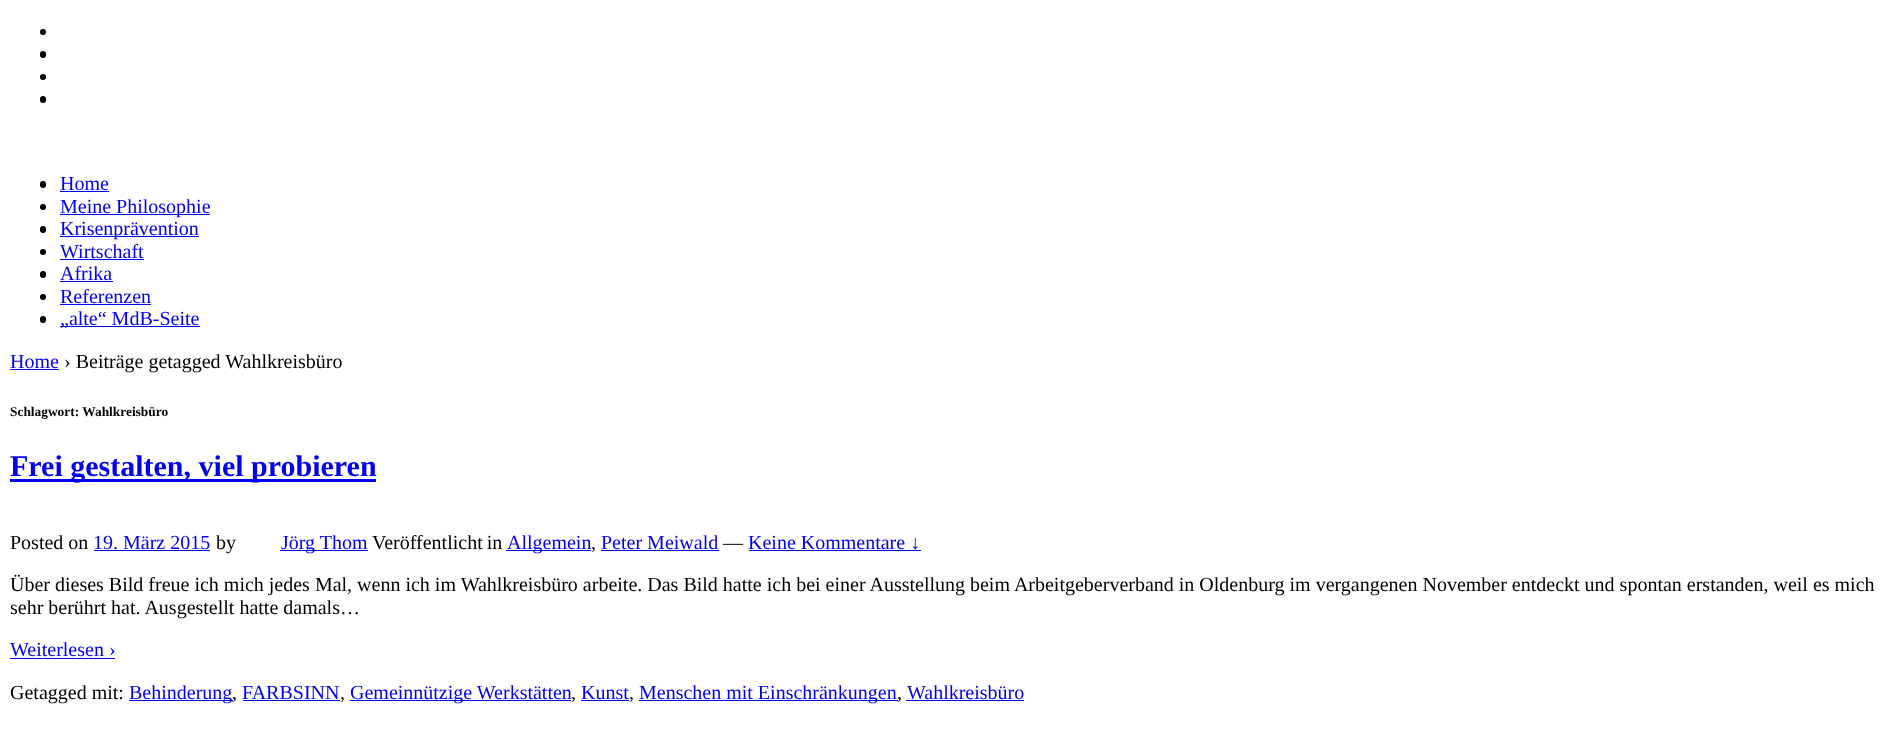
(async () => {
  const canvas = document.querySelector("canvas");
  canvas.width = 1892;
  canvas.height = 737;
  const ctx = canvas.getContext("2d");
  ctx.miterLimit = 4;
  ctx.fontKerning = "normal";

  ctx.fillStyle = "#ffffff";
  ctx.fillRect(0, 0, 1892, 737);
  ctx.fillStyle = "#000000";
  ctx.beginPath();
  ctx.arc(43, 32, 3, 0, Math.PI * 2);
  ctx.fill();
  ctx.beginPath();
  ctx.roundRect(40, 51, 6, 7, 3);
  ctx.fill();
  ctx.beginPath();
  ctx.arc(43, 77, 3, 0, Math.PI * 2);
  ctx.fill();
  ctx.beginPath();
  ctx.roundRect(40, 96, 6, 7, 3);
  ctx.fill();
  ctx.beginPath();
  ctx.roundRect(40, 181, 6, 7, 3);
  ctx.fill();
  ctx.fillStyle = "#0000ee";
  ctx.fillRect(60, 191, 49, 1);
  ctx.fillStyle = "#000000";
  ctx.beginPath();
  ctx.arc(43, 207, 3, 0, Math.PI * 2);
  ctx.fill();
  ctx.fillStyle = "#0000ee";
  ctx.fillRect(60, 214, 150, 1);
  ctx.fillStyle = "#000000";
  ctx.beginPath();
  ctx.roundRect(40, 226, 6, 7, 3);
  ctx.fill();
  ctx.fillStyle = "#0000ee";
  ctx.fillRect(60, 236, 139, 1);
  ctx.fillStyle = "#000000";
  ctx.beginPath();
  ctx.arc(43, 252, 3, 0, Math.PI * 2);
  ctx.fill();
  ctx.fillStyle = "#0000ee";
  ctx.fillRect(60, 259, 84, 1);
  ctx.fillStyle = "#000000";
  ctx.beginPath();
  ctx.roundRect(40, 271, 6, 7, 3);
  ctx.fill();
  ctx.fillStyle = "#0000ee";
  ctx.fillRect(60, 281, 53, 1);
  ctx.fillStyle = "#000000";
  ctx.beginPath();
  ctx.arc(43, 297, 3, 0, Math.PI * 2);
  ctx.fill();
  ctx.fillStyle = "#0000ee";
  ctx.fillRect(60, 304, 91, 1);
  ctx.fillStyle = "#000000";
  ctx.beginPath();
  ctx.roundRect(40, 316, 6, 7, 3);
  ctx.fill();
  for (const [x, y, w, h, color] of [
    [60, 326, 140, 1, "#0000ee"],
    [10, 369, 49, 1, "#0000ee"],
    [10, 479, 366, 3, "#0000ee"],
    [94, 550, 116, 1, "#0000ee"],
    [280, 550, 88, 1, "#0000ee"],
    [749, 550, 172, 1, "#0000ee"],
    [506, 550, 85, 1, "#0000ee"],
    [601, 550, 118, 1, "#0000ee"],
    [10, 658, 105, 1, "#0000ee"],
    [129, 700, 104, 1, "#0000ee"],
    [243, 700, 97, 1, "#0000ee"],
    [350, 700, 221, 1, "#0000ee"],
    [581, 700, 48, 1, "#0000ee"],
    [639, 700, 259, 1, "#0000ee"],
    [906, 700, 118, 1, "#0000ee"],
  ]) {
    ctx.fillStyle = color;
    ctx.fillRect(x, y, w, h);
  }
  ctx.font = "20px Liberation Serif";
  for (const [text, x, y] of [
    ["Home", 60, 190],
    ["Meine Philosophie", 60, 213],
    ["Krisenprävention", 60, 235],
    ["Wirtschaft", 60, 258],
    ["Afrika", 60, 280],
    ["Referenzen", 60, 303],
    ["„alte“ MdB-Seite", 60, 325],
    ["Home", 10, 368],
  ]) {
    ctx.fillText(text, x, y);
  }
  ctx.fillStyle = "#000000";
  ctx.fillText("› Beiträge getagged Wahlkreisbüro", 64, 368);
  ctx.font = "bold 13.4px Liberation Serif";
  ctx.fillText("Schlagwort: Wahlkreisbüro", 10, 416);
  ctx.font = "bold 30px Liberation Serif";
  ctx.fillStyle = "#0000ee";
  ctx.fillText("Frei gestalten, viel probieren", 10, 476);
  ctx.font = "20px Liberation Serif";
  ctx.fillStyle = "#000000";
  ctx.fillText("Posted on", 10, 549);
  ctx.fillStyle = "#0000ee";
  ctx.fillText("19. März 2015", 93, 549);
  ctx.fillStyle = "#000000";
  ctx.fillText("by", 216, 549);
  ctx.fillStyle = "#0000ee";
  ctx.fillText("Jörg Thom", 281, 549);
  ctx.wordSpacing = "-1px";
  ctx.fillStyle = "#000000";
  ctx.fillText("Veröffentlicht in", 372, 549);
  ctx.wordSpacing = "0px";
  ctx.fillStyle = "#0000ee";
  ctx.fillText("Allgemein", 507, 549);
  ctx.fillText("Peter Meiwald", 601, 549);
  ctx.fillStyle = "#000000";
  ctx.fillText("—", 723, 549);
  ctx.fillStyle = "#0000ee";
  ctx.fillText("Keine Kommentare ↓", 748, 549);
  ctx.fillStyle = "#000000";
  for (const [text, x, y] of [
    [",", 591, 549],
    ["Über dieses Bild freue ich mich jedes Mal, wenn ich im Wahlkreisbüro arbeite. Das Bild hatte ich bei einer Ausstellung beim Arbeitgeberverband in Oldenburg im vergangenen November entdeckt und spontan erstanden, weil es mich", 10, 591],
    ["sehr berührt hat. Ausgestellt hatte damals…", 10, 614],
  ]) {
    ctx.fillText(text, x, y);
  }
  ctx.fillStyle = "#0000ee";
  ctx.fillText("Weiterlesen ›", 10, 656);
  ctx.fillStyle = "#000000";
  ctx.fillText("Getagged mit:", 10, 699);
  ctx.fillStyle = "#0000ee";
  ctx.fillText("Behinderung", 129, 699);
  ctx.fillStyle = "#000000";
  ctx.fillText(",", 232, 699);
  ctx.fillStyle = "#0000ee";
  ctx.fillText("FARBSINN", 242, 699);
  ctx.fillStyle = "#000000";
  ctx.fillText(",", 340, 699);
  ctx.fillStyle = "#0000ee";
  ctx.fillText("Gemeinnützige Werkstätten", 350, 699);
  ctx.fillStyle = "#000000";
  ctx.fillText(",", 571, 699);
  ctx.fillStyle = "#0000ee";
  ctx.fillText("Kunst", 581, 699);
  ctx.fillStyle = "#000000";
  ctx.fillText(",", 629, 699);
  ctx.fillStyle = "#0000ee";
  ctx.fillText("Menschen mit Einschränkungen", 639, 699);
  ctx.fillStyle = "#000000";
  ctx.fillText(",", 897, 699);
  ctx.fillStyle = "#0000ee";
  ctx.fillText("Wahlkreisbüro", 907, 699);
})();
